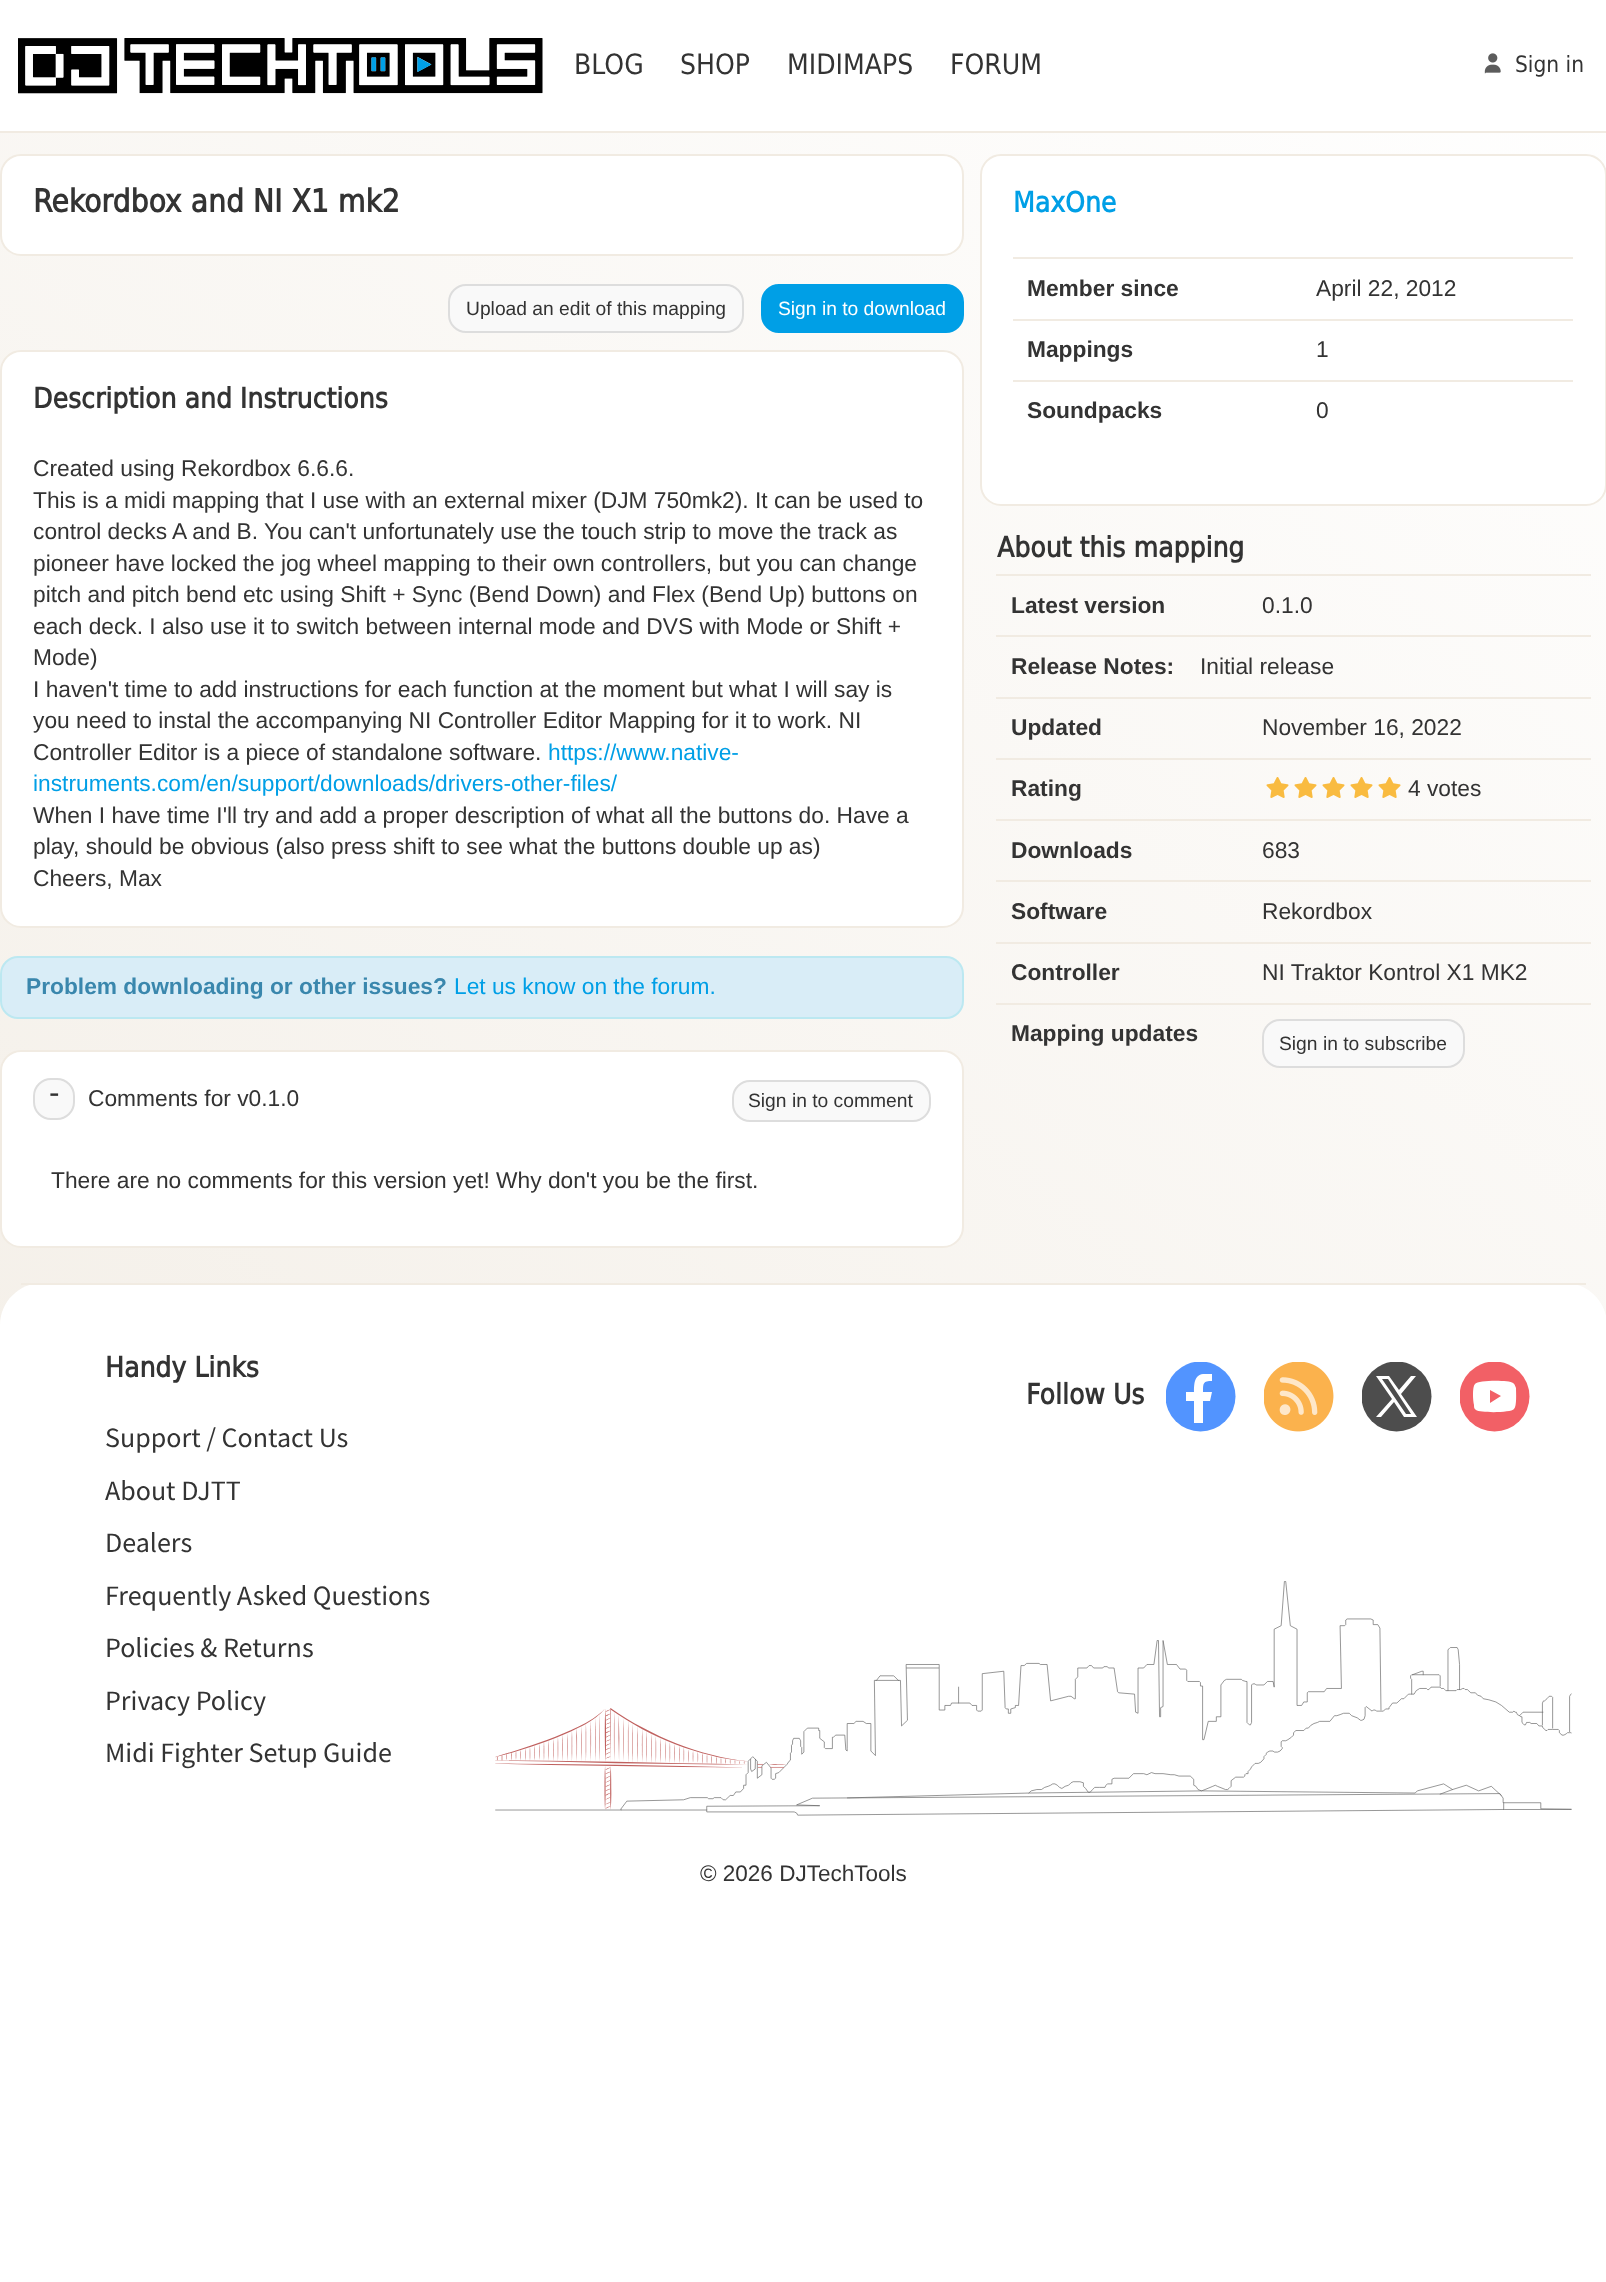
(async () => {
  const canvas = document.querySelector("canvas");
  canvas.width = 1606;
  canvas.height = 2282;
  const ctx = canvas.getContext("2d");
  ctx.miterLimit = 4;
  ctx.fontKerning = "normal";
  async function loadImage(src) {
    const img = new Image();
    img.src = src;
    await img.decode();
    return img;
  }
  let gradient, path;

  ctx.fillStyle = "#ffffff";
  ctx.fillRect(0, 0, 1606, 2282);
  ctx.drawImage(await loadImage("img/1.png"), 18, 38, 525, 56);
  ctx.drawImage(await loadImage("img/2.png"), 1484, 53, 17, 21);
  gradient = ctx.createLinearGradient(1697, 76, -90, 2206);
  gradient.addColorStop(0, "#ffffff");
  gradient.addColorStop(1, "#f1ebe2");
  ctx.fillStyle = gradient;
  ctx.fillRect(0, 133, 1606, 1192);
  ctx.fillStyle = "#f1ebe2";
  ctx.fillRect(0, 131, 1606, 2);
  ctx.fillStyle = "#ffffff";
  ctx.beginPath();
  ctx.roundRect(1, 155, 962, 100, 20);
  ctx.fill();
  ctx.strokeStyle = "#f1ebe2";
  ctx.lineWidth = 2;
  ctx.stroke();
  ctx.fillStyle = "#f9f9f9";
  ctx.beginPath();
  ctx.roundRect(449, 285, 294, 47, 17);
  ctx.fill();
  ctx.strokeStyle = "#dddddd";
  ctx.stroke();
  ctx.fillStyle = "#009fe6";
  ctx.beginPath();
  ctx.roundRect(762, 285, 201, 47, 17);
  ctx.fill();
  ctx.strokeStyle = "#009fe6";
  ctx.stroke();
  ctx.fillStyle = "#ffffff";
  ctx.beginPath();
  ctx.roundRect(1, 351, 962, 576, 20);
  ctx.fill();
  ctx.strokeStyle = "#f1ebe2";
  ctx.stroke();
  ctx.fillStyle = "#d9edf7";
  ctx.beginPath();
  ctx.roundRect(1, 957, 962, 61, 17);
  ctx.fill();
  ctx.strokeStyle = "#bce8f1";
  ctx.stroke();
  ctx.fillStyle = "#ffffff";
  ctx.beginPath();
  ctx.roundRect(1, 1051, 962, 196, 20);
  ctx.fill();
  ctx.strokeStyle = "#f1ebe2";
  ctx.stroke();
  ctx.fillStyle = "#f9f9f9";
  ctx.beginPath();
  ctx.roundRect(34, 1079, 40, 40, 17);
  ctx.fill();
  ctx.strokeStyle = "#dddddd";
  ctx.stroke();
  ctx.beginPath();
  ctx.roundRect(733, 1081, 197, 40, 17);
  ctx.fill();
  ctx.stroke();
  ctx.fillStyle = "#ffffff";
  ctx.beginPath();
  ctx.roundRect(981, 155, 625, 350, 20);
  ctx.fill();
  ctx.strokeStyle = "#f1ebe2";
  ctx.stroke();
  for (const [x, y, w, h, color] of [
    [1013, 257, 560, 2, "#f1ebe2"],
    [1013, 319, 560, 2, "#f1ebe2"],
    [1013, 380, 560, 2, "#f1ebe2"],
    [996, 574, 595, 2, "#f1ebe2"],
    [996, 635, 595, 2, "#f1ebe2"],
    [996, 697, 595, 2, "#f1ebe2"],
    [996, 758, 595, 2, "#f1ebe2"],
  ]) {
    ctx.fillStyle = color;
    ctx.fillRect(x, y, w, h);
  }
  ctx.drawImage(await loadImage("img/3.png"), 1266, 777, 23, 21);
  ctx.drawImage(await loadImage("img/4.png"), 1294, 777, 23, 21);
  ctx.drawImage(await loadImage("img/5.png"), 1322, 777, 23, 21);
  ctx.drawImage(await loadImage("img/6.png"), 1350, 777, 23, 21);
  ctx.drawImage(await loadImage("img/7.png"), 1378, 777, 23, 21);
  for (const [x, y, w, h, color] of [
    [996, 819, 595, 2, "#f1ebe2"],
    [996, 880, 595, 2, "#f1ebe2"],
    [996, 942, 595, 2, "#f1ebe2"],
    [996, 1003, 595, 2, "#f1ebe2"],
  ]) {
    ctx.fillStyle = color;
    ctx.fillRect(x, y, w, h);
  }
  ctx.fillStyle = "#f9f9f9";
  ctx.beginPath();
  ctx.roundRect(1263, 1020, 201, 47, 17);
  ctx.fill();
  ctx.strokeStyle = "#dddddd";
  ctx.stroke();
  ctx.fillStyle = "#ffffff";
  path = new Path2D("M42 1283H1565C1588 1283 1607 1302 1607 1325V1925H0V1325C0 1302 19 1283 42 1283Z");
  ctx.fill(path);
  ctx.fillStyle = "#f1ebe2";
  ctx.fillRect(21, 1283, 1565, 2);
  ctx.drawImage(await loadImage("img/8.png"), 495, 1581, 1077, 235);
  ctx.save();
  ctx.beginPath();
  ctx.rect(1166, 1362, 70, 70);
  ctx.clip();
  ctx.fillStyle = "#5294ff";
  ctx.beginPath();
  ctx.arc(1200.5, 1396.5, 35, 0, Math.PI * 2);
  ctx.fill();
  ctx.restore();
  ctx.fillStyle = "#ffffff";
  path = new Path2D("M1194 1423H1203V1401H1210L1212 1392H1203C1203 1383 1203 1381 1212 1381V1374H1203C1194 1375 1194 1385 1194 1392H1186V1401H1194Z");
  ctx.fill(path, "evenodd");
  ctx.drawImage(await loadImage("img/9.png"), 1264, 1362, 70, 70);
  ctx.save();
  ctx.beginPath();
  ctx.rect(1362, 1362, 70, 70);
  ctx.clip();
  ctx.fillStyle = "#4d4d4d";
  ctx.beginPath();
  ctx.arc(1396.5, 1396.5, 35, 0, Math.PI * 2);
  ctx.fill();
  ctx.restore();
  path = new Path2D("M1416 1376L1401 1394L1417 1417H1404L1394 1402L1381 1417H1376L1392 1399L1376 1376H1389L1399 1390L1411 1376ZM1388 1379H1382L1406 1414H1411Z");
  ctx.fill(path);
  ctx.save();
  ctx.beginPath();
  ctx.rect(1460, 1362, 70, 70);
  ctx.clip();
  ctx.fillStyle = "#f26066";
  ctx.beginPath();
  ctx.arc(1494.5, 1396.5, 35, 0, Math.PI * 2);
  ctx.fill();
  ctx.restore();
  path = new Path2D("M1516 1388C1515 1386 1515 1384 1513 1383C1509 1380 1478 1380 1475 1384C1472 1387 1473 1401 1474 1405C1474 1407 1474 1409 1476 1410C1480 1413 1511 1413 1514 1409C1517 1406 1516 1393 1516 1388ZM1490 1403V1390L1501 1396Z");
  ctx.fill(path, "evenodd");
  ctx.font = "28px DejaVu Sans";
  ctx.fillStyle = "#333333";
  for (const [text, x, y] of [
    ["BLOG", 574, 74],
    ["SHOP", 680, 74],
    ["MIDIMAPS", 787, 74],
    ["FORUM", 950, 74],
  ]) {
    ctx.fillText(text, x, y);
  }
  ctx.font = "22.5px DejaVu Sans";
  ctx.fillText("Sign in", 1515, 72);
  ctx.font = "bold 31.5px DejaVu Sans";
  ctx.fillText("Rekordbox and NI X1 mk2", 33, 212);
  ctx.font = "19.25px Liberation Sans";
  ctx.fillText("Upload an edit of this mapping", 466, 315);
  ctx.fillStyle = "#ffffff";
  ctx.fillText("Sign in to download", 778, 315);
  ctx.font = "bold 28px DejaVu Sans";
  ctx.fillStyle = "#333333";
  ctx.fillText("Description and Instructions", 33, 408);
  ctx.font = "22.75px Liberation Sans";
  for (const [text, x, y] of [
    ["Created using Rekordbox 6.6.6.", 33, 476],
    ["This is a midi mapping that I use with an external mixer (DJM 750mk2). It can be used to", 33, 508],
    ["control decks A and B. You can't unfortunately use the touch strip to move the track as", 33, 539],
    ["pioneer have locked the jog wheel mapping to their own controllers, but you can change", 33, 571],
    ["pitch and pitch bend etc using Shift + Sync (Bend Down) and Flex (Bend Up) buttons on", 33, 602],
    ["each deck. I also use it to switch between internal mode and DVS with Mode or Shift +", 33, 634],
    ["Mode)", 33, 665],
    ["I haven't time to add instructions for each function at the moment but what I will say is", 33, 697],
    ["you need to instal the accompanying NI Controller Editor Mapping for it to work. NI", 33, 728],
    ["Controller Editor is a piece of standalone software.", 33, 760],
  ]) {
    ctx.fillText(text, x, y);
  }
  ctx.fillStyle = "#009fe6";
  ctx.fillText("https://www.native-", 548, 760);
  ctx.fillText("instruments.com/en/support/downloads/drivers-other-files/", 33, 791);
  ctx.fillStyle = "#333333";
  for (const [text, x, y] of [
    ["When I have time I'll try and add a proper description of what all the buttons do. Have a", 33, 823],
    ["play, should be obvious (also press shift to see what the buttons double up as)", 33, 854],
    ["Cheers, Max", 33, 886],
  ]) {
    ctx.fillText(text, x, y);
  }
  ctx.font = "bold 22.75px Liberation Sans";
  ctx.fillStyle = "#3a87ad";
  ctx.fillText("Problem downloading or other issues?", 26, 994);
  ctx.font = "22.75px Liberation Sans";
  ctx.fillStyle = "#009fe6";
  ctx.fillText("Let us know on the forum.", 454, 994);
  ctx.font = "31.5px Liberation Sans";
  ctx.fillStyle = "#333333";
  ctx.fillText("-", 49, 1103);
  ctx.font = "22.75px Liberation Sans";
  ctx.fillText("Comments for v0.1.0", 88, 1106);
  ctx.font = "19.25px Liberation Sans";
  ctx.fillText("Sign in to comment", 748, 1107);
  ctx.font = "22.75px Liberation Sans";
  ctx.fillText("There are no comments for this version yet! Why don't you be the first.", 51, 1188);
  ctx.font = "bold 28px DejaVu Sans";
  ctx.fillStyle = "#009fe6";
  ctx.fillText("MaxOne", 1013, 212);
  ctx.font = "bold 22.75px Liberation Sans";
  ctx.fillStyle = "#333333";
  ctx.fillText("Member since", 1027, 296);
  ctx.font = "22.75px Liberation Sans";
  ctx.fillText("April 22, 2012", 1316, 296);
  ctx.font = "bold 22.75px Liberation Sans";
  ctx.fillText("Mappings", 1027, 357);
  ctx.font = "22.75px Liberation Sans";
  ctx.fillText("1", 1316, 357);
  ctx.font = "bold 22.75px Liberation Sans";
  ctx.fillText("Soundpacks", 1027, 418);
  ctx.font = "22.75px Liberation Sans";
  ctx.fillText("0", 1316, 418);
  ctx.font = "bold 28px DejaVu Sans";
  ctx.fillText("About this mapping", 997, 557);
  ctx.font = "bold 22.75px Liberation Sans";
  ctx.fillText("Latest version", 1011, 613);
  ctx.font = "22.75px Liberation Sans";
  ctx.fillText("0.1.0", 1262, 613);
  ctx.font = "bold 22.75px Liberation Sans";
  ctx.fillText("Release Notes:", 1011, 674);
  ctx.font = "22.75px Liberation Sans";
  ctx.fillText("Initial release", 1200, 674);
  ctx.font = "bold 22.75px Liberation Sans";
  ctx.fillText("Updated", 1011, 735);
  ctx.font = "22.75px Liberation Sans";
  ctx.fillText("November 16, 2022", 1262, 735);
  ctx.font = "bold 22.75px Liberation Sans";
  ctx.fillText("Rating", 1011, 796);
  ctx.font = "22.75px Liberation Sans";
  ctx.fillText("4 votes", 1408, 796);
  ctx.font = "bold 22.75px Liberation Sans";
  ctx.fillText("Downloads", 1011, 858);
  ctx.font = "22.75px Liberation Sans";
  ctx.fillText("683", 1262, 858);
  ctx.font = "bold 22.75px Liberation Sans";
  ctx.fillText("Software", 1011, 919);
  ctx.font = "22.75px Liberation Sans";
  ctx.fillText("Rekordbox", 1262, 919);
  ctx.font = "bold 22.75px Liberation Sans";
  ctx.fillText("Controller", 1011, 980);
  ctx.font = "22.75px Liberation Sans";
  ctx.fillText("NI Traktor Kontrol X1 MK2", 1262, 980);
  ctx.font = "bold 22.75px Liberation Sans";
  ctx.fillText("Mapping updates", 1011, 1041);
  ctx.font = "19.25px Liberation Sans";
  ctx.fillText("Sign in to subscribe", 1279, 1050);
  ctx.font = "bold 28px DejaVu Sans";
  ctx.fillText("Handy Links", 105, 1377);
  ctx.font = "28px Source Sans Pro";
  for (const [text, x, y] of [
    ["Support / Contact Us", 105, 1447],
    ["About DJTT", 105, 1500],
    ["Dealers", 105, 1552],
    ["Frequently Asked Questions", 105, 1605],
    ["Policies & Returns", 105, 1657],
    ["Privacy Policy", 105, 1710],
    ["Midi Fighter Setup Guide", 105, 1762],
  ]) {
    ctx.fillText(text, x, y);
  }
  ctx.font = "bold 28px DejaVu Sans";
  ctx.fillText("Follow Us", 1026, 1404);
  ctx.font = "22.5px Liberation Sans";
  ctx.fillText("© 2026 DJTechTools", 700, 1881);
})();
